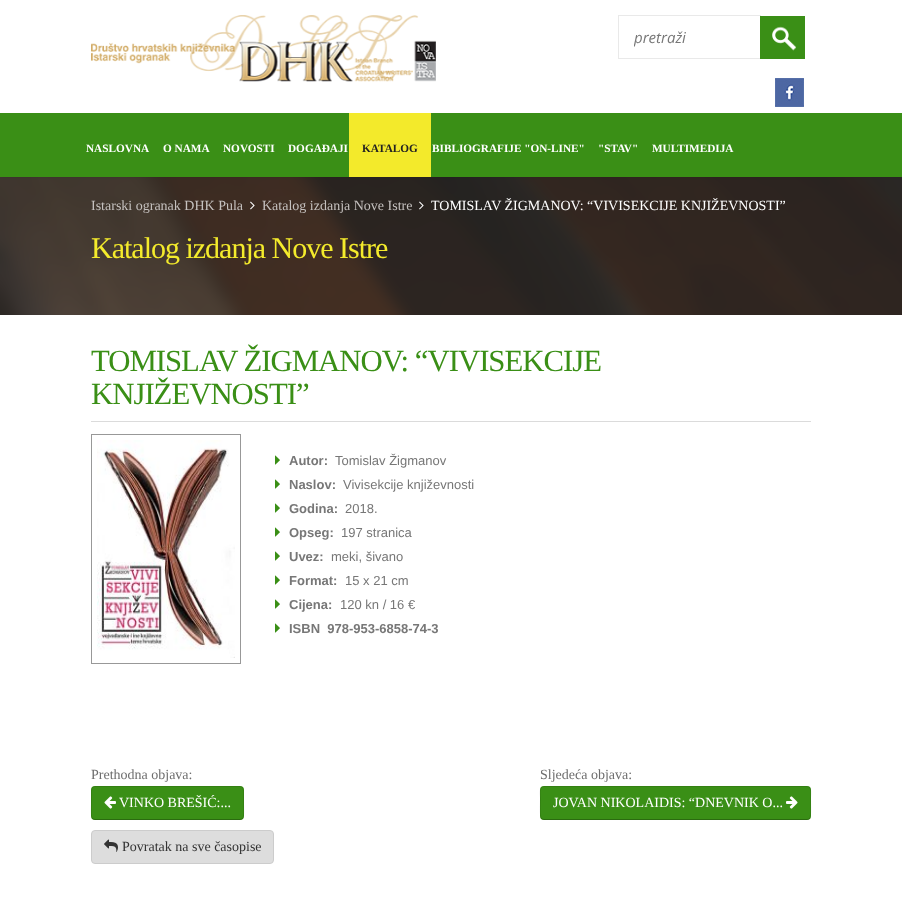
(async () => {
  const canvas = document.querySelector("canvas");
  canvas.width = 902;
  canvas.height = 902;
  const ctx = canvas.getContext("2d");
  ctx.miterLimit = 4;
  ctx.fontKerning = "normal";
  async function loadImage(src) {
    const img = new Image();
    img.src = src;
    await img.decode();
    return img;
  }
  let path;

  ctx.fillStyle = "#ffffff";
  ctx.fillRect(0, 0, 902, 902);
  ctx.drawImage(await loadImage("img/4.png"), 0, 177, 902, 138);
  ctx.fillStyle = "rgba(0, 0, 0, 0.1)";
  ctx.filter = "blur(1.5px)";
  ctx.beginPath();
  ctx.rect(0, 0, 902, 177);
  ctx.fill();
  ctx.filter = "none";
  ctx.fillStyle = "#ffffff";
  ctx.fillRect(0, 0, 902, 113);
  ctx.drawImage(await loadImage("img/1.png"), 91, 15, 345, 67);
  ctx.strokeStyle = "#e9e9e9";
  ctx.strokeRect(618.5, 15.5, 142, 43);
  ctx.drawImage(await loadImage("img/2.png"), 760, 16, 45, 43);
  ctx.drawImage(await loadImage("img/3.png"), 775, 78, 29, 29);
  ctx.fillStyle = "#3a8f16";
  ctx.fillRect(0, 113, 902, 64);
  ctx.fillStyle = "#f3ea2b";
  ctx.fillRect(349, 113, 82, 64);
  ctx.drawImage(await loadImage("img/5.png"), 250, 201, 5, 9);
  ctx.drawImage(await loadImage("img/6.png"), 419, 201, 5, 9);
  ctx.fillStyle = "#dbdbdb";
  ctx.fillRect(91, 421, 720, 1);
  ctx.strokeStyle = "#989898";
  ctx.strokeRect(91.5, 434.5, 149, 229);
  ctx.drawImage(await loadImage("img/7.png"), 97, 440, 138, 218);
  ctx.drawImage(await loadImage("img/8.png"), 275, 455, 5, 10);
  ctx.drawImage(await loadImage("img/8.png"), 275, 479, 5, 10);
  ctx.drawImage(await loadImage("img/8.png"), 275, 503, 5, 10);
  ctx.drawImage(await loadImage("img/8.png"), 275, 527, 5, 10);
  ctx.drawImage(await loadImage("img/8.png"), 275, 551, 5, 10);
  ctx.drawImage(await loadImage("img/8.png"), 275, 575, 5, 10);
  ctx.drawImage(await loadImage("img/8.png"), 275, 599, 5, 10);
  ctx.drawImage(await loadImage("img/8.png"), 275, 623, 5, 10);
  ctx.fillStyle = "#3a8f16";
  ctx.beginPath();
  ctx.roundRect(91, 786, 153, 34, 4);
  ctx.fill();
  path = new Path2D("M242.5 818.5C242 819 241 819.5 240 819.5H95C94 819.5 93 819 92.5 818.5");
  ctx.strokeStyle = "rgba(0, 0, 0, 0.25)";
  ctx.stroke(path);
  path = new Path2D("M92.5 818.5C90.5 816 91.5 806 91.5 803V794.5C91.5 791.5 91 786.5 95 786.5H240C244 786.5 243.5 791.5 243.5 794.5V803C243.5 806 244.5 816 242.5 818.5");
  ctx.strokeStyle = "rgba(0, 0, 0, 0.1)";
  ctx.stroke(path);
  ctx.drawImage(await loadImage("img/9.png"), 104, 796, 12, 13);
  ctx.beginPath();
  ctx.roundRect(540, 786, 271, 34, 4);
  ctx.fill();
  path = new Path2D("M809.5 818.5C809 819 808 819.5 807 819.5H544C543 819.5 542 819 541.5 818.5");
  ctx.strokeStyle = "rgba(0, 0, 0, 0.25)";
  ctx.stroke(path);
  path = new Path2D("M541.5 818.5C539.5 816 540.5 802 540.5 798.5C540.5 796 538.5 786.5 544 786.5H807C812.5 786.5 810.5 796 810.5 798.5C810.5 802 811.5 816 809.5 818.5");
  ctx.strokeStyle = "rgba(0, 0, 0, 0.1)";
  ctx.stroke(path);
  ctx.drawImage(await loadImage("img/10.png"), 786, 796, 12, 13);
  ctx.fillStyle = "#dddddd";
  ctx.beginPath();
  ctx.roundRect(91.5, 830.5, 182, 33, 3.5);
  ctx.fill();
  ctx.strokeStyle = "#cccccc";
  ctx.stroke();
  ctx.drawImage(await loadImage("img/11.png"), 104, 839, 14, 13);
  ctx.save();
  ctx.beginPath();
  ctx.rect(634, 27, 126, 20);
  ctx.clip();
  ctx.font = "italic 15px Open Sans";
  ctx.fillStyle = "#777777";
  ctx.fillText("pretraži", 634, 43);
  ctx.restore();
  ctx.font = "bold 11.25px Liberation Serif";
  ctx.fillStyle = "#ffffff";
  for (const [text, x, y] of [
    ["NASLOVNA", 86, 152],
    ["O NAMA", 163, 152],
    ["NOVOSTI", 223, 152],
    ["DOGAĐAJI", 288, 152],
  ]) {
    ctx.fillText(text, x, y);
  }
  ctx.fillStyle = "#222222";
  ctx.fillText("KATALOG", 362, 152);
  ctx.fillStyle = "#ffffff";
  for (const [text, x, y] of [
    ["BIBLIOGRAFIJE \"ON-LINE\"", 432, 152],
    ["\"STAV\"", 598, 152],
    ["MULTIMEDIJA", 652, 152],
  ]) {
    ctx.fillText(text, x, y);
  }
  ctx.font = "14px Liberation Serif";
  ctx.fillStyle = "#c5c1bf";
  ctx.fillText("Istarski ogranak DHK Pula", 91, 210);
  ctx.fillText("Katalog izdanja Nove Istre", 262, 210);
  ctx.fillStyle = "#ffffff";
  ctx.fillText("TOMISLAV ŽIGMANOV: “VIVISEKCIJE KNJIŽEVNOSTI”", 431, 210);
  ctx.letterSpacing = "-1px";
  ctx.font = "30px Liberation Serif";
  ctx.fillStyle = "#f4eb2c";
  ctx.fillText("Katalog izdanja Nove Istre", 91, 258);
  ctx.font = "30.75px Liberation Serif";
  ctx.fillStyle = "#3a8f16";
  ctx.fillText("TOMISLAV ŽIGMANOV: “VIVISEKCIJE", 91, 371);
  ctx.fillText("KNJIŽEVNOSTI”", 91, 404);
  ctx.letterSpacing = "0px";
  ctx.font = "bold 13px Liberation Sans";
  ctx.fillStyle = "#777777";
  ctx.fillText("Autor:", 289, 465);
  ctx.font = "13px Liberation Sans";
  ctx.fillText("Tomislav Žigmanov", 335, 465);
  ctx.font = "bold 13px Liberation Sans";
  ctx.fillText("Naslov:", 289, 489);
  ctx.font = "13px Liberation Sans";
  ctx.fillText("Vivisekcije književnosti", 343, 489);
  ctx.font = "bold 13px Liberation Sans";
  ctx.fillText("Godina:", 289, 513);
  ctx.font = "13px Liberation Sans";
  ctx.fillText("2018.", 345, 513);
  ctx.font = "bold 13px Liberation Sans";
  ctx.fillText("Opseg:", 289, 537);
  ctx.font = "13px Liberation Sans";
  ctx.fillText("197 stranica", 341, 537);
  ctx.font = "bold 13px Liberation Sans";
  ctx.fillText("Uvez:", 289, 561);
  ctx.font = "13px Liberation Sans";
  ctx.fillText("meki, šivano", 331, 561);
  ctx.font = "bold 13px Liberation Sans";
  ctx.fillText("Format:", 289, 585);
  ctx.font = "13px Liberation Sans";
  ctx.fillText("15 x 21 cm", 345, 585);
  ctx.font = "bold 13px Liberation Sans";
  ctx.fillText("Cijena:", 289, 609);
  ctx.font = "13px Liberation Sans";
  ctx.fillText("120 kn / 16 €", 340, 609);
  ctx.font = "bold 13px Liberation Sans";
  ctx.fillText("ISBN  978-953-6858-74-3", 289, 633);
  ctx.font = "14px Liberation Serif";
  ctx.fillStyle = "#6d6d6d";
  ctx.fillText("Prethodna objava:", 91, 779);
  ctx.fillStyle = "#ffffff";
  ctx.fillText("VINKO BREŠIĆ:...", 119, 807);
  ctx.fillStyle = "#6d6d6d";
  ctx.fillText("Sljedeća objava:", 540, 779);
  ctx.fillStyle = "#ffffff";
  ctx.fillText("JOVAN NIKOLAIDIS: “DNEVNIK O...", 553, 807);
  ctx.fillStyle = "#333333";
  ctx.fillText("Povratak na sve časopise", 122, 851);
})();
